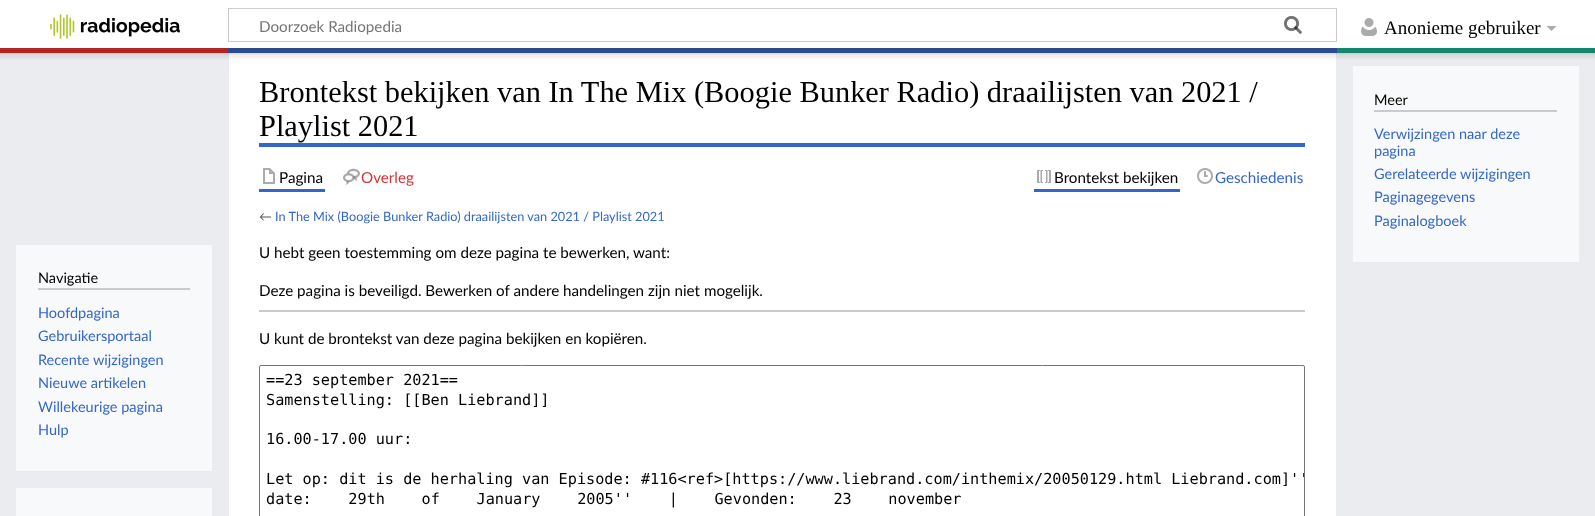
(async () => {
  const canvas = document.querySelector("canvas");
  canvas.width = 1595;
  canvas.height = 516;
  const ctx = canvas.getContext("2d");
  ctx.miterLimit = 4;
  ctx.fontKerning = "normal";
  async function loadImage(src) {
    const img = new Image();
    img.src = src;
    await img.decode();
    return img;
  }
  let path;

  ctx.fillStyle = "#eaecf0";
  ctx.fillRect(0, 0, 1595, 516);
  ctx.fillStyle = "#ffffff";
  ctx.fillRect(229, 53, 1107, 463);
  ctx.fillStyle = "rgba(0, 0, 0, 0.2)";
  ctx.filter = "blur(1px)";
  ctx.beginPath();
  ctx.rect(0, 48, 1595, 5);
  ctx.fill();
  ctx.filter = "none";
  ctx.fillStyle = "rgba(0, 0, 0, 0.07)";
  ctx.filter = "blur(1.5px)";
  ctx.beginPath();
  ctx.rect(-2, 49, 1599, 9);
  ctx.fill();
  ctx.filter = "none";
  ctx.fillStyle = "#ffffff";
  ctx.fillRect(0, 0, 1595, 48);
  ctx.drawImage(await loadImage("img/1.png"), 50, 14, 130, 25);
  ctx.strokeStyle = "#c8ccd1";
  ctx.strokeRect(228.5, 8.5, 1108, 33);
  ctx.drawImage(await loadImage("img/2.png"), 1284, 16, 18, 18);
  ctx.drawImage(await loadImage("img/3.png"), 1284, 16, 18, 18);
  ctx.drawImage(await loadImage("img/4.png"), 1361, 18, 16, 18);
  ctx.fillStyle = "#ababab";
  path = new Path2D("M1556.5 26L1551.5 31L1546.5 26Z");
  ctx.fill(path);
  for (const [x, y, w, h, color] of [
    [0, 48, 228, 5, "#b32424"],
    [228, 48, 1109, 5, "#2a4b8d"],
    [1337, 48, 258, 5, "#14866d"],
    [259, 143, 1046, 4, "#3366cc"],
    [259, 189, 66, 3, "#3366cc"],
  ]) {
    ctx.fillStyle = color;
    ctx.fillRect(x, y, w, h);
  }
  ctx.drawImage(await loadImage("img/5.png"), 263, 168, 12, 16);
  ctx.drawImage(await loadImage("img/6.png"), 343, 168, 17, 17);
  ctx.fillRect(1034, 189, 146, 3);
  ctx.drawImage(await loadImage("img/7.png"), 1037, 170, 14, 13);
  ctx.drawImage(await loadImage("img/8.png"), 1197, 168, 16, 16);
  ctx.fillStyle = "#c8ccd1";
  ctx.fillRect(259, 310, 1046, 2);
  ctx.beginPath();
  ctx.roundRect(259.5, 365.5, 1045, 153, 1.5);
  ctx.strokeStyle = "#767676";
  ctx.stroke();
  for (const [x, y, w, h, color] of [
    [1353, 66, 226, 196, "#f8f9fa"],
    [1374, 110, 183, 2, "#c8ccd1"],
    [16, 245, 196, 226, "#f8f9fa"],
    [38, 288, 152, 2, "#c8ccd1"],
    [16, 488, 196, 28, "#f8f9fa"],
  ]) {
    ctx.fillStyle = color;
    ctx.fillRect(x, y, w, h);
  }
  ctx.font = "15.2px Lato";
  ctx.fillStyle = "#757575";
  ctx.fillText("Doorzoek Radiopedia", 259, 32);
  ctx.font = "19px Liberation Serif";
  ctx.fillStyle = "#000000";
  ctx.fillText("Anonieme gebruiker", 1384, 34);
  ctx.font = "30.4px Liberation Serif";
  ctx.fillText("Brontekst bekijken van In The Mix (Boogie Bunker Radio) draailijsten van 2021 /", 259, 102);
  ctx.fillText("Playlist 2021", 259, 136);
  ctx.font = "15.2px Lato";
  ctx.fillText("Pagina", 279, 183);
  ctx.fillStyle = "#d73333";
  ctx.fillText("Overleg", 361, 183);
  ctx.fillStyle = "#000000";
  ctx.fillText("Brontekst bekijken", 1054, 183);
  ctx.fillStyle = "#3366cc";
  ctx.fillText("Geschiedenis", 1215, 183);
  ctx.font = "12.75px Lato";
  ctx.fillStyle = "#54595d";
  ctx.fillText("←", 259, 221);
  ctx.fillStyle = "#3366cc";
  ctx.fillText("In The Mix (Boogie Bunker Radio) draailijsten van 2021 / Playlist 2021", 275, 221);
  ctx.font = "15.2px Lato";
  ctx.fillStyle = "#000000";
  for (const [text, x, y] of [
    ["U hebt geen toestemming om deze pagina te bewerken, want:", 259, 258],
    ["Deze pagina is beveiligd. Bewerken of andere handelingen zijn niet mogelijk.", 259, 296],
    ["U kunt de brontekst van deze pagina bekijken en kopiëren.", 259, 344],
  ]) {
    ctx.fillText(text, x, y);
  }
  ctx.font = "15.2px DejaVu Sans Mono";
  for (const [text, x, y] of [
    ["==23 september 2021==", 266, 385],
    ["Samenstelling: [[Ben Liebrand]]", 266, 405],
    ["16.00-17.00 uur:", 266, 444],
    ["Let op: dit is de herhaling van Episode: #116<ref>[https://www.liebrand.com/inthemix/20050129.html Liebrand.com]", 266, 484],
  ]) {
    ctx.fillText(text, x, y);
  }
  ctx.save();
  ctx.beginPath();
  ctx.rect(260, 366, 1044, 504);
  ctx.clip();
  ctx.fillText("''", 1290, 484);
  ctx.restore();
  ctx.wordSpacing = "27.5px";
  ctx.fillText("date: 29th of January 2005'' | Gevonden: 23 november", 266, 504);
  ctx.wordSpacing = "0px";
  ctx.font = "14.5px Lato";
  ctx.fillText("Meer", 1374, 105);
  ctx.fillStyle = "#3366cc";
  for (const [text, x, y] of [
    ["Verwijzingen naar deze", 1374, 139],
    ["pagina", 1374, 156],
    ["Gerelateerde wijzigingen", 1374, 179],
    ["Paginagegevens", 1374, 202],
    ["Paginalogboek", 1374, 226],
  ]) {
    ctx.fillText(text, x, y);
  }
  ctx.fillStyle = "#000000";
  ctx.fillText("Navigatie", 38, 283);
  ctx.fillStyle = "#3366cc";
  for (const [text, x, y] of [
    ["Hoofdpagina", 38, 318],
    ["Gebruikersportaal", 38, 341],
    ["Recente wijzigingen", 38, 365],
    ["Nieuwe artikelen", 38, 388],
    ["Willekeurige pagina", 38, 412],
    ["Hulp", 38, 435],
  ]) {
    ctx.fillText(text, x, y);
  }
})();
